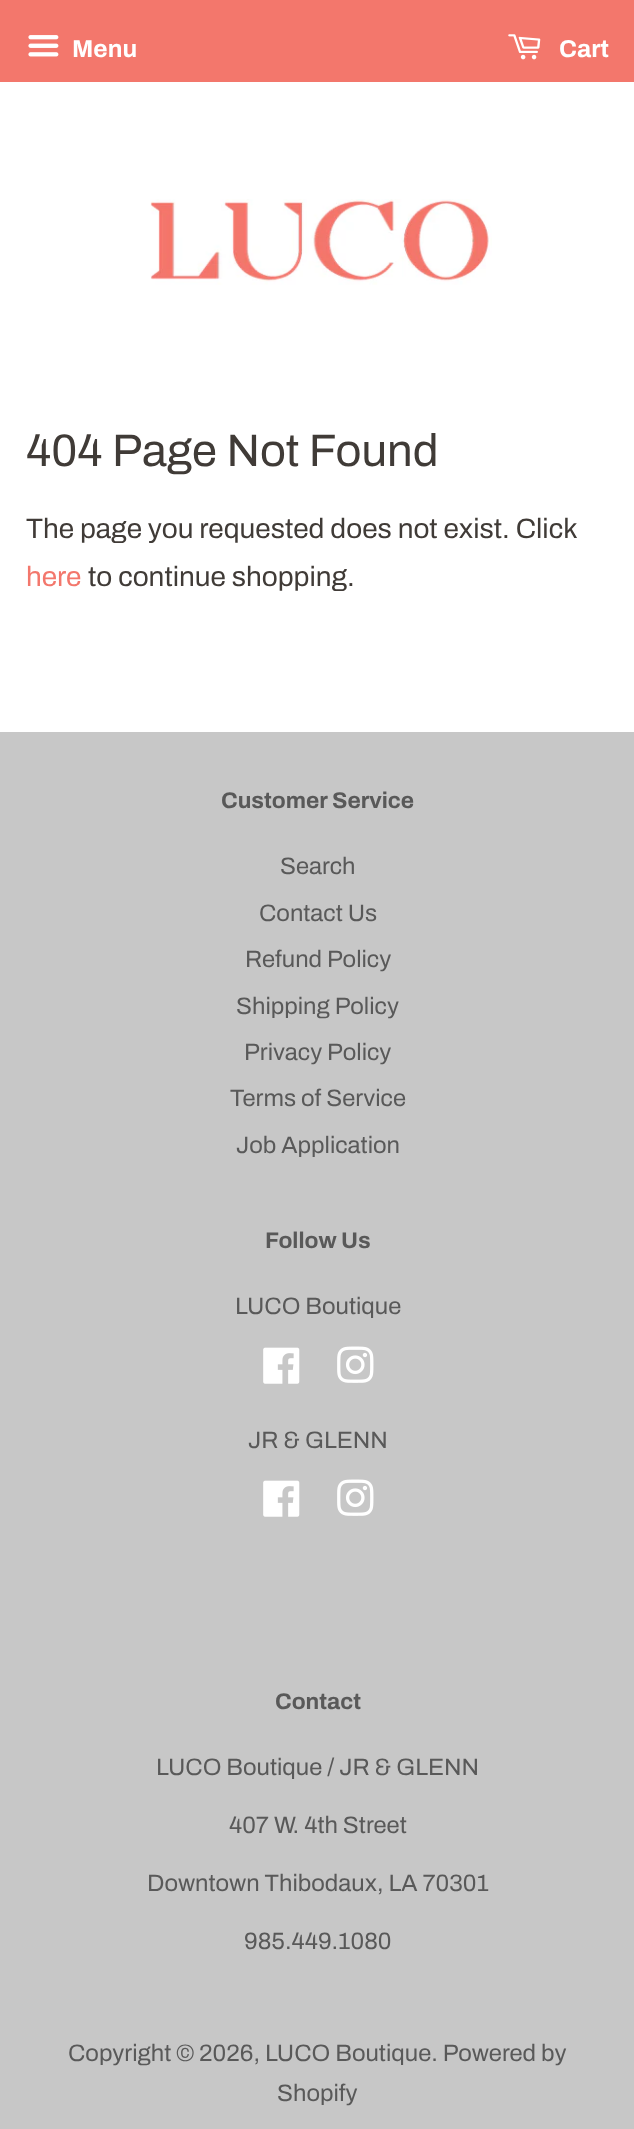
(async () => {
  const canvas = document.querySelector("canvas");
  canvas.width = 634;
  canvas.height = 2129;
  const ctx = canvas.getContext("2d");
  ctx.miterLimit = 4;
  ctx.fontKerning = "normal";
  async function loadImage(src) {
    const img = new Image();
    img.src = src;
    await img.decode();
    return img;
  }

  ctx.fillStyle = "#ffffff";
  ctx.fillRect(0, 0, 634, 2129);
  ctx.fillStyle = "#f3776c";
  ctx.fillRect(0, 0, 634, 82);
  ctx.drawImage(await loadImage("img/1.png"), 28, 35, 31, 22);
  ctx.drawImage(await loadImage("img/2.png"), 508, 34, 33, 26);
  ctx.drawImage(await loadImage("img/3.png"), 150, 199, 342, 86);
  ctx.fillStyle = "#c7c7c7";
  ctx.fillRect(0, 732, 634, 1397);
  ctx.drawImage(await loadImage("img/4.png"), 263, 1347, 37, 37);
  ctx.drawImage(await loadImage("img/5.png"), 337, 1346, 37, 37);
  ctx.drawImage(await loadImage("img/4.png"), 263, 1480, 37, 37);
  ctx.drawImage(await loadImage("img/5.png"), 337, 1479, 37, 37);
  ctx.font = "bold 24.5px Archivo";
  ctx.fillStyle = "#ffffff";
  ctx.fillText("Menu", 72, 57);
  ctx.fillText("Cart", 559, 57);
  ctx.font = "45.5px Archivo";
  ctx.fillStyle = "#403b37";
  ctx.fillText("404 Page Not Found", 26, 466);
  ctx.font = "28px Archivo";
  ctx.fillText("The page you requested does not exist. Click", 26, 538);
  ctx.fillStyle = "#f3776c";
  ctx.fillText("here", 26, 586);
  ctx.fillStyle = "#403b37";
  ctx.fillText("to continue shopping.", 88, 586);
  ctx.font = "bold 22.75px Archivo";
  ctx.fillStyle = "#595959";
  ctx.fillText("Customer Service", 221, 808);
  ctx.font = "23.8px Archivo";
  for (const [text, x, y] of [
    ["Search", 280, 874],
    ["Contact Us", 259, 921],
    ["Refund Policy", 245, 967],
    ["Shipping Policy", 236, 1014],
    ["Privacy Policy", 244, 1060],
    ["Terms of Service", 230, 1106],
    ["Job Application", 236, 1153],
  ]) {
    ctx.fillText(text, x, y);
  }
  ctx.font = "bold 22.75px Archivo";
  ctx.fillText("Follow Us", 265, 1248);
  ctx.font = "23.8px Archivo";
  ctx.fillText("LUCO Boutique", 235, 1314);
  ctx.fillText("JR & GLENN", 248, 1448);
  ctx.font = "bold 22.75px Archivo";
  ctx.fillText("Contact", 275, 1709);
  ctx.font = "23.8px Archivo";
  for (const [text, x, y] of [
    ["LUCO Boutique / JR & GLENN", 156, 1775],
    ["407 W. 4th Street", 229, 1833],
    ["Downtown Thibodaux, LA 70301", 147, 1891],
    ["985.449.1080", 244, 1949],
    ["Copyright © 2026, LUCO Boutique. Powered by", 68, 2061],
    ["Shopify", 277, 2101],
  ]) {
    ctx.fillText(text, x, y);
  }
})();
